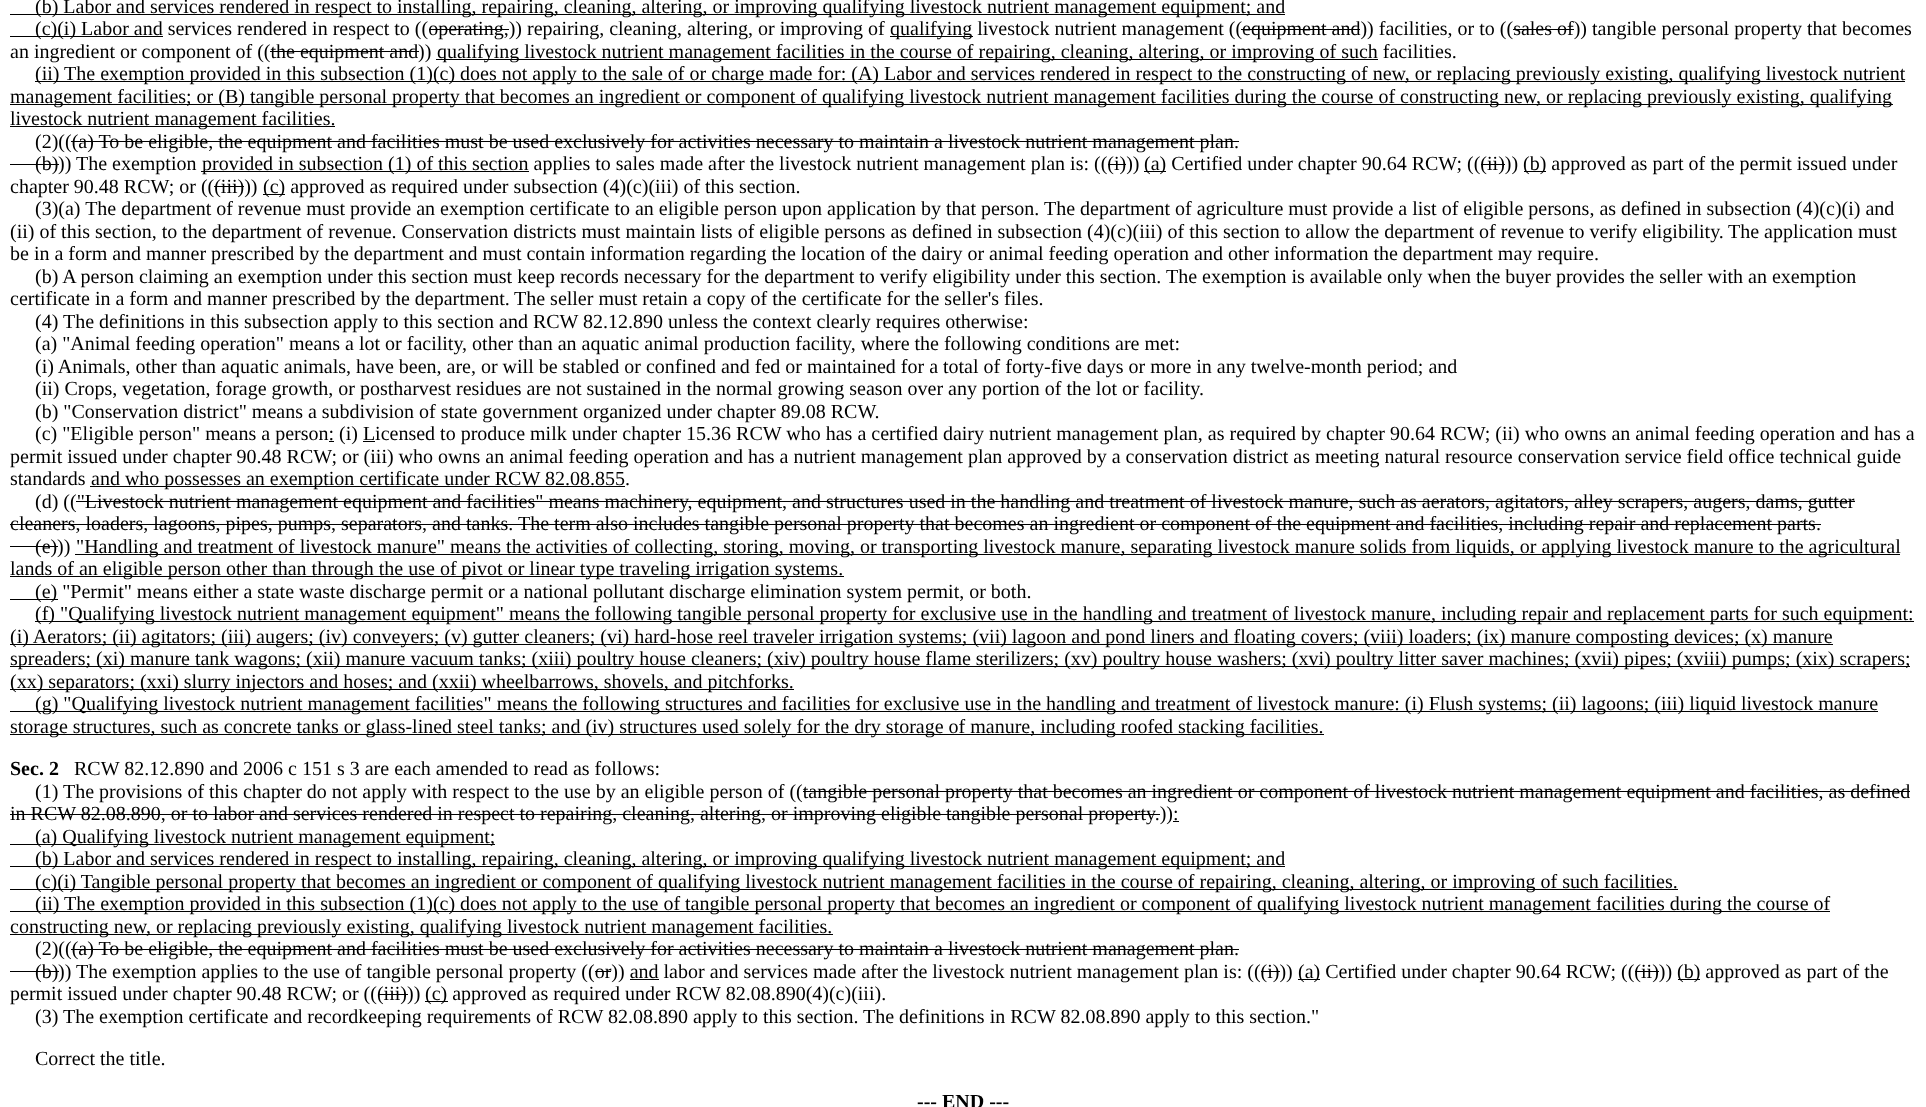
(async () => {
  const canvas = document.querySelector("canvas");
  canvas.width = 1926;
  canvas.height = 1107;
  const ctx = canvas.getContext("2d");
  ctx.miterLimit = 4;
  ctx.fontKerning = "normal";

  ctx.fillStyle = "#ffffff";
  ctx.fillRect(0, 0, 1926, 1107);
  for (const [x, y, w, h, color] of [
    [10, 14, 1275, 1, "#000000"],
    [10, 36, 153, 1, "#000000"],
    [890, 36, 83, 1, "#000000"],
    [429, 29, 80, 1, "#000000"],
    [1241, 29, 119, 1, "#000000"],
    [1513, 29, 61, 1, "#000000"],
    [436, 59, 942, 1, "#000000"],
    [270, 51, 149, 1, "#000000"],
    [35, 81, 1870, 1, "#000000"],
    [10, 104, 1883, 1, "#000000"],
    [10, 126, 325, 1, "#000000"],
    [71, 141, 1168, 1, "#000000"],
    [10, 164, 49, 1, "#000000"],
    [201, 171, 328, 1, "#000000"],
    [1144, 171, 22, 1, "#000000"],
    [1524, 171, 22, 1, "#000000"],
    [1108, 164, 18, 1, "#000000"],
    [1481, 164, 24, 1, "#000000"],
    [263, 194, 22, 1, "#000000"],
    [214, 186, 30, 1, "#000000"],
    [329, 441, 5, 1, "#000000"],
    [363, 441, 12, 1, "#000000"],
    [90, 486, 535, 1, "#000000"],
    [76, 501, 1779, 1, "#000000"],
    [10, 524, 508, 1, "#000000"],
    [518, 524, 1303, 1, "#000000"],
    [10, 546, 48, 1, "#000000"],
    [75, 554, 1825, 1, "#000000"],
    [10, 576, 834, 1, "#000000"],
    [10, 599, 48, 1, "#000000"],
    [35, 621, 1879, 1, "#000000"],
    [10, 644, 1823, 1, "#000000"],
    [10, 666, 1900, 1, "#000000"],
    [10, 689, 784, 1, "#000000"],
    [10, 711, 1868, 1, "#000000"],
    [10, 734, 1314, 1, "#000000"],
    [803, 791, 1107, 1, "#000000"],
    [10, 814, 1150, 1, "#000000"],
    [10, 844, 485, 1, "#000000"],
    [1173, 821, 6, 1, "#000000"],
    [10, 866, 1275, 1, "#000000"],
    [10, 889, 1668, 1, "#000000"],
    [10, 911, 1820, 1, "#000000"],
    [10, 934, 823, 1, "#000000"],
    [71, 949, 1168, 1, "#000000"],
    [10, 971, 49, 1, "#000000"],
    [1298, 979, 22, 1, "#000000"],
    [1678, 979, 22, 1, "#000000"],
    [595, 971, 16, 1, "#000000"],
    [1261, 971, 19, 1, "#000000"],
    [1635, 971, 24, 1, "#000000"],
    [630, 979, 29, 1, "#000000"],
    [425, 1001, 23, 1, "#000000"],
    [378, 994, 30, 1, "#000000"],
  ]) {
    ctx.fillStyle = color;
    ctx.fillRect(x, y, w, h);
  }
  ctx.font = "20px Liberation Serif";
  for (const [text, x, y] of [
    ["(b) Labor and services rendered in respect to installing, repairing, cleaning, altering, or improving qualifying livestock nutrient management equipment; and", 35, 13],
    ["(c)(i) Labor and services rendered in respect to ((operating,)) repairing, cleaning, altering, or improving of", 35, 35],
    ["qualifying livestock nutrient management ((equipment and)) facilities, or to ((sales of)) tangible personal property that becomes", 890, 35],
    ["an ingredient or component of ((the equipment and", 10, 58],
    ["))", 418, 58],
    ["qualifying livestock nutrient management facilities in the course of repairing, cleaning, altering, or improving of such facilities.", 437, 58],
    ["(ii) The exemption provided in this subsection (1)(c) does not apply to the sale of or charge made for: (A) Labor and services rendered in respect to the constructing of new, or replacing previously existing, qualifying livestock nutrient", 35, 80],
    ["management facilities; or (B) tangible personal property that becomes an ingredient or component of qualifying livestock nutrient management facilities during the course of constructing new, or replacing previously existing, qualifying", 10, 103],
    ["livestock nutrient management facilities.", 10, 125],
    ["(2)(((a) To be eligible, the equipment and facilities must be used exclusively for activities necessary to maintain a livestock nutrient management plan.", 35, 148],
    ["(b)", 35, 170],
    [")) The exemption", 58, 170],
    ["provided in subsection (1) of this section applies to sales made after the livestock nutrient management plan is: (((i)))", 202, 170],
    ["(a) Certified under chapter 90.64 RCW; (((ii)))", 1144, 170],
    ["(b) approved as part of the permit issued under", 1523, 170],
    ["chapter 90.48 RCW; or (((iii)))", 10, 193],
    ["(c) approved as required under subsection (4)(c)(iii) of this section.", 263, 193],
    ["(3)(a) The department of revenue must provide an exemption certificate to an eligible person upon application by that person.", 35, 215],
    ["The department of agriculture must provide a list of eligible persons, as defined in subsection (4)(c)(i) and", 1044, 215],
    ["(ii) of this section, to the department of revenue. Conservation districts must maintain lists of eligible persons as defined in subsection (4)(c)(iii) of this section to allow the department of revenue to verify eligibility.", 10, 238],
    ["The application must", 1728, 238],
    ["be in a form and manner prescribed by the department and must contain information regarding the location of the dairy or animal feeding operation and other information the department may require.", 10, 260],
    ["(b) A person claiming an exemption under this section must keep records necessary for the department to verify eligibility under this section.", 35, 283],
    ["The exemption is available only when the buyer provides the seller with an exemption", 1166, 283],
    ["certificate in a form and manner prescribed by the department.", 10, 305],
    ["The seller must retain a copy of the certificate for the seller's files.", 514, 305],
    ["(4) The definitions in this subsection apply to this section and RCW 82.12.890 unless the context clearly requires otherwise:", 35, 328],
    ["(a) \"Animal feeding operation\" means a lot or facility, other than an aquatic animal production facility, where the following conditions are met:", 35, 350],
    ["(i) Animals, other than aquatic animals, have been, are, or will be stabled or confined and fed or maintained for a total of forty-five days or more in any twelve-month period; and", 35, 373],
    ["(ii) Crops, vegetation, forage growth, or postharvest residues are not sustained in the normal growing season over any portion of the lot or facility.", 35, 395],
    ["(b) \"Conservation district\" means a subdivision of state government organized under chapter 89.08 RCW.", 35, 418],
    ["(c) \"Eligible person\" means a person: (i) Licensed to produce milk under chapter 15.36 RCW who has a certified dairy nutrient management plan, as required by chapter 90.64 RCW; (ii) who owns an animal feeding operation and has a", 35, 440],
    ["permit issued under chapter 90.48 RCW; or (iii) who owns an animal feeding operation and has a nutrient management plan approved by a conservation district as meeting natural resource conservation service field office technical guide", 10, 463],
    ["standards", 10, 485],
    ["and who possesses an exemption certificate under RCW 82.08.855.", 91, 485],
    ["(d) ((\"Livestock nutrient management equipment and facilities\" means machinery, equipment, and structures used in the handling and treatment of livestock manure, such as aerators, agitators, alley scrapers, augers, dams, gutter", 35, 508],
    ["cleaners, loaders, lagoons, pipes, pumps, separators, and tanks.", 10, 530],
    ["The term also includes tangible personal property that becomes an ingredient or component of the equipment and facilities, including repair and replacement parts.", 518, 530],
    ["(e)", 35, 553],
    ["))", 57, 553],
    ["\"Handling and treatment of livestock manure\" means the activities of collecting, storing, moving, or transporting livestock manure, separating livestock manure solids from liquids, or applying livestock manure to the agricultural", 76, 553],
    ["lands of an eligible person other than through the use of pivot or linear type traveling irrigation systems.", 10, 575],
    ["(e) \"Permit\" means either a state waste discharge permit or a national pollutant discharge elimination system permit, or both.", 35, 598],
    ["(f) \"Qualifying livestock nutrient management equipment\" means the following tangible personal property for exclusive use in the handling and treatment of livestock manure, including repair and replacement parts for such equipment:", 35, 620],
    ["(i) Aerators; (ii) agitators; (iii) augers; (iv) conveyers; (v) gutter cleaners; (vi) hard-hose reel traveler irrigation systems; (vii) lagoon and pond liners and floating covers; (viii) loaders; (ix) manure composting devices; (x) manure", 10, 643],
    ["spreaders; (xi) manure tank wagons; (xii) manure vacuum tanks; (xiii) poultry house cleaners; (xiv) poultry house flame sterilizers; (xv) poultry house washers; (xvi) poultry litter saver machines; (xvii) pipes; (xviii) pumps; (xix) scrapers;", 10, 665],
    ["(xx) separators; (xxi) slurry injectors and hoses; and (xxii) wheelbarrows, shovels, and pitchforks.", 10, 688],
    ["(g) \"Qualifying livestock nutrient management facilities\" means the following structures and facilities for exclusive use in the handling and treatment of livestock manure: (i) Flush systems; (ii) lagoons; (iii) liquid livestock manure", 35, 710],
    ["storage structures, such as concrete tanks or glass-lined steel tanks; and (iv) structures used solely for the dry storage of manure, including roofed stacking facilities.", 10, 733],
  ]) {
    ctx.fillText(text, x, y);
  }
  ctx.font = "bold 20px Liberation Serif";
  ctx.fillText("Sec. 2", 10, 775);
  ctx.font = "20px Liberation Serif";
  for (const [text, x, y] of [
    ["RCW 82.12.890 and 2006 c 151 s 3 are each amended to read as follows:", 74, 775],
    ["(1) The provisions of this chapter do not apply with respect to the use by an eligible person of ((tangible personal property that becomes an ingredient or component of livestock nutrient management equipment and facilities, as defined", 35, 798],
    ["in RCW 82.08.890, or to labor and services rendered in respect to repairing, cleaning, altering, or improving eligible tangible personal property.)):", 10, 820],
    ["(a) Qualifying livestock nutrient management equipment;", 35, 843],
    ["(b) Labor and services rendered in respect to installing, repairing, cleaning, altering, or improving qualifying livestock nutrient management equipment; and", 35, 865],
    ["(c)(i) Tangible personal property that becomes an ingredient or component of qualifying livestock nutrient management facilities in the course of repairing, cleaning, altering, or improving of such facilities.", 35, 888],
    ["(ii) The exemption provided in this subsection (1)(c) does not apply to the use of tangible personal property that becomes an ingredient or component of qualifying livestock nutrient management facilities during the course of", 35, 910],
    ["constructing new, or replacing previously existing, qualifying livestock nutrient management facilities.", 10, 933],
    ["(2)(((a) To be eligible, the equipment and facilities must be used exclusively for activities necessary to maintain a livestock nutrient management plan.", 35, 955],
    ["(b)", 35, 978],
    [")) The exemption applies to the use of tangible personal property ((or)) and labor and services made after the livestock nutrient management plan is: (((i)))", 58, 978],
    ["(a) Certified under chapter 90.64 RCW; (((ii)))", 1298, 978],
    ["(b) approved as part of the", 1677, 978],
    ["permit issued under chapter 90.48 RCW; or (((iii)", 10, 1000],
    ["))", 407, 1000],
    ["(c) approved as required under RCW 82.08.890(4)(c)(iii).", 425, 1000],
    ["(3) The exemption certificate and recordkeeping requirements of RCW 82.08.890 apply to this section.", 35, 1023],
    ["The definitions in RCW 82.08.890 apply to this section.\"", 863, 1023],
    ["Correct the title.", 35, 1065],
  ]) {
    ctx.fillText(text, x, y);
  }
  ctx.font = "bold 20px Liberation Serif";
  ctx.fillText("--- END ---", 917, 1108);
})();
